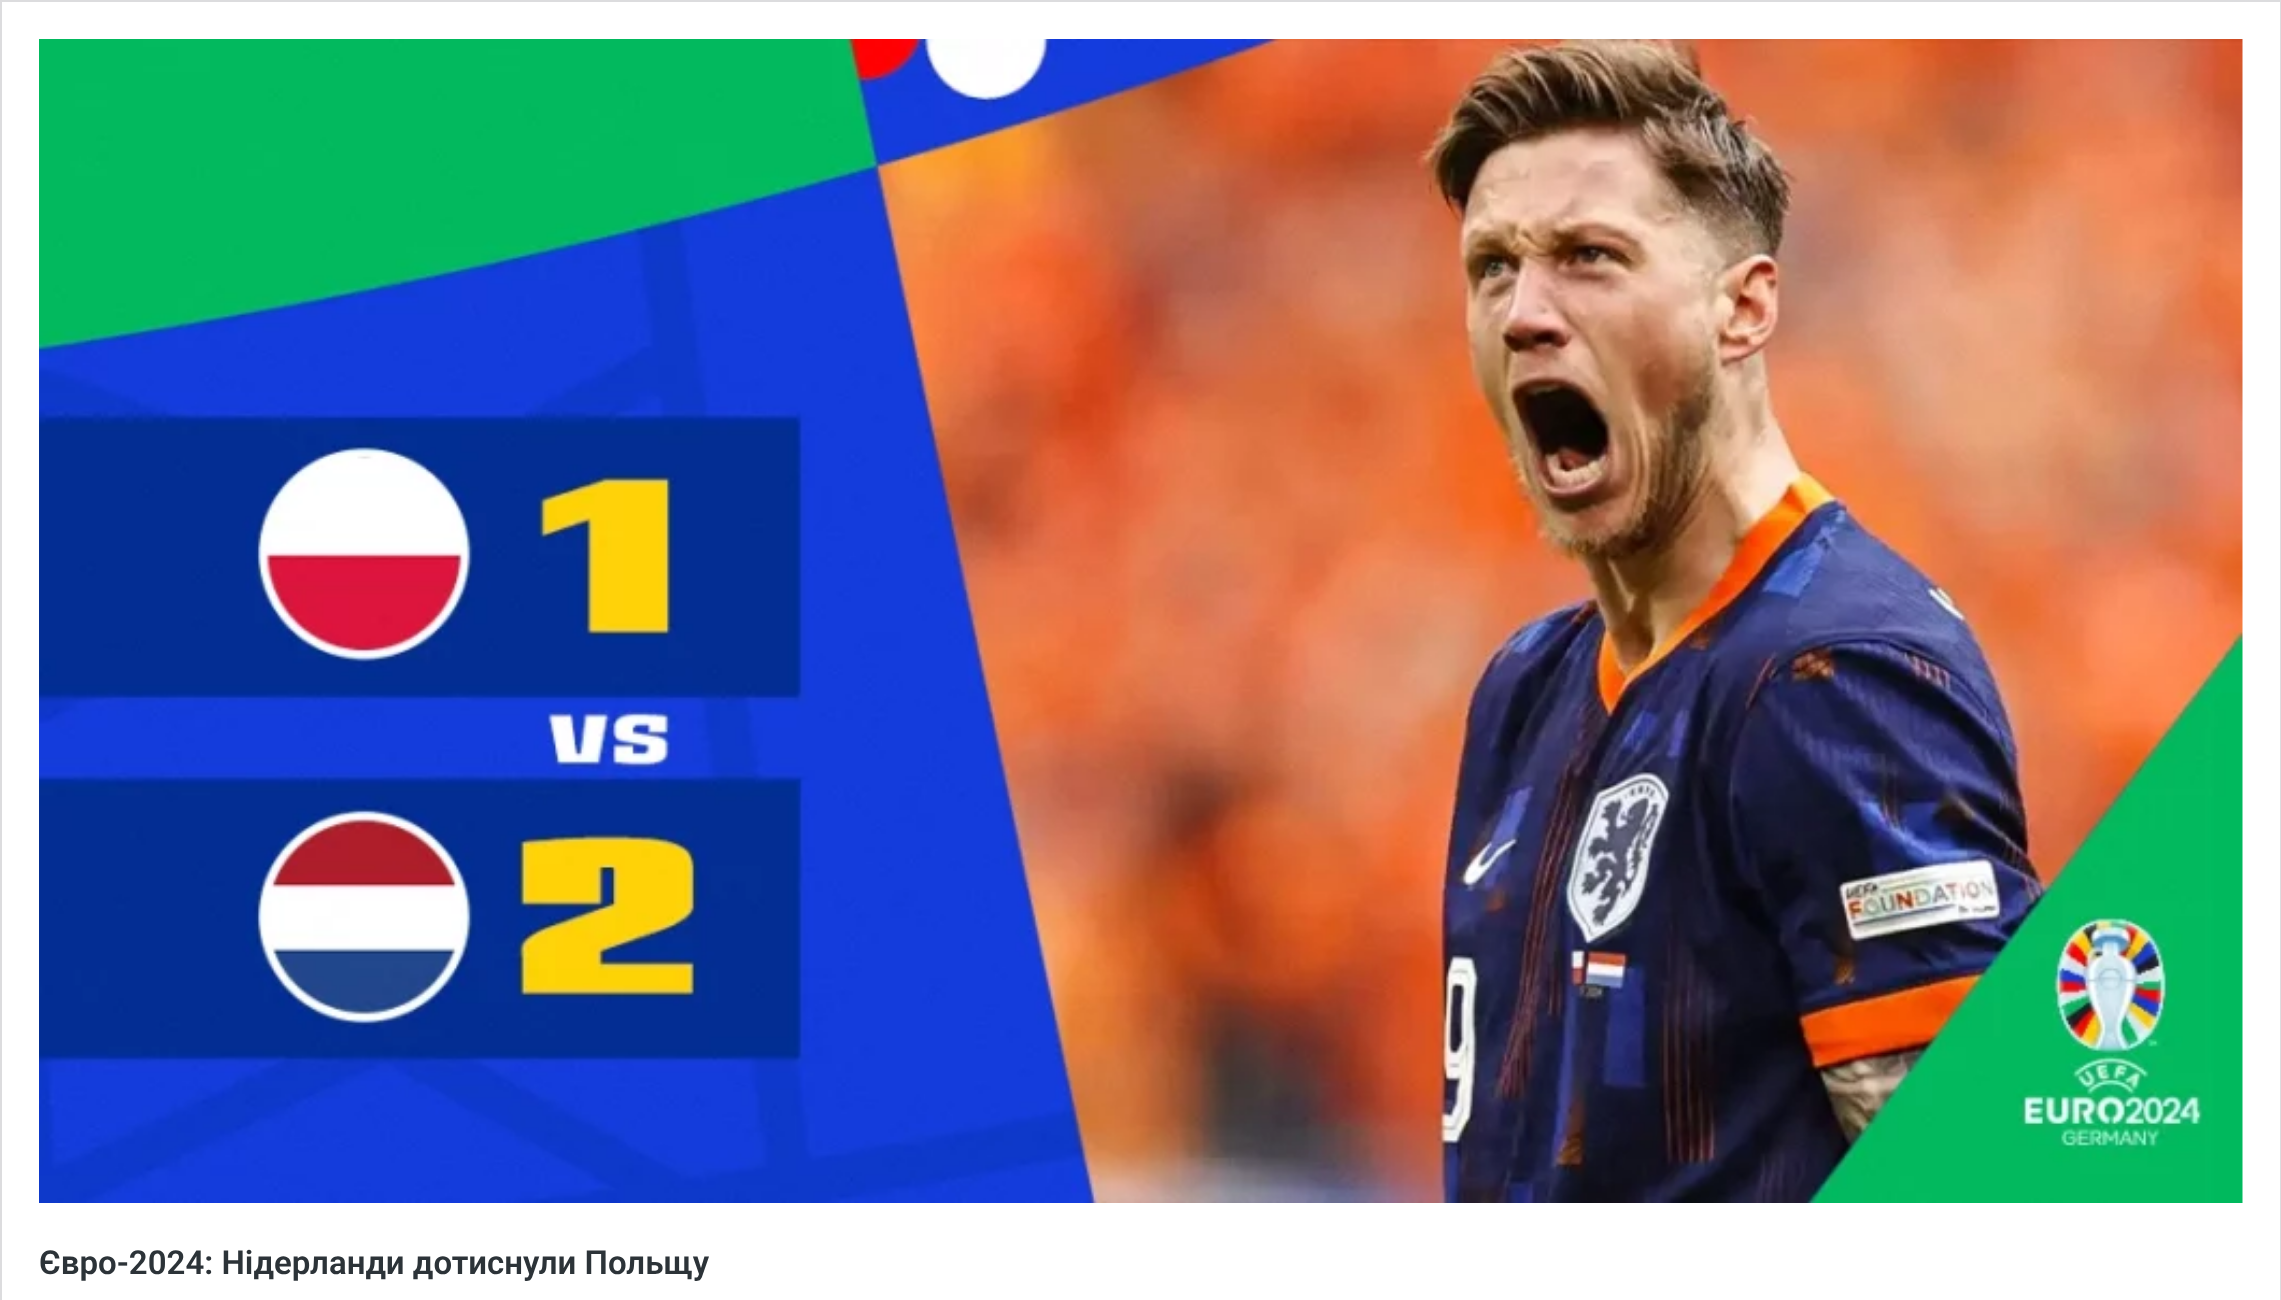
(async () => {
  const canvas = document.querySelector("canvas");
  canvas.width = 2281;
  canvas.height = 1300;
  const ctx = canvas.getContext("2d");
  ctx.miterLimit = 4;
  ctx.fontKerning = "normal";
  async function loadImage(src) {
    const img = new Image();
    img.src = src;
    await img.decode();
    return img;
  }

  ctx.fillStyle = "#ffffff";
  ctx.fillRect(0, 0, 2281, 1300);
  ctx.strokeStyle = "#dcdcde";
  ctx.lineWidth = 2;
  ctx.strokeRect(1, 1, 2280, 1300);
  ctx.drawImage(await loadImage("img/1.png"), 39, 39, 2204, 1164);
  ctx.font = "600 33px Roboto";
  ctx.fillStyle = "#2c3338";
  ctx.fillText("Євро-2024: Нідерланди дотиснули Польщу", 39, 1274);
})();
